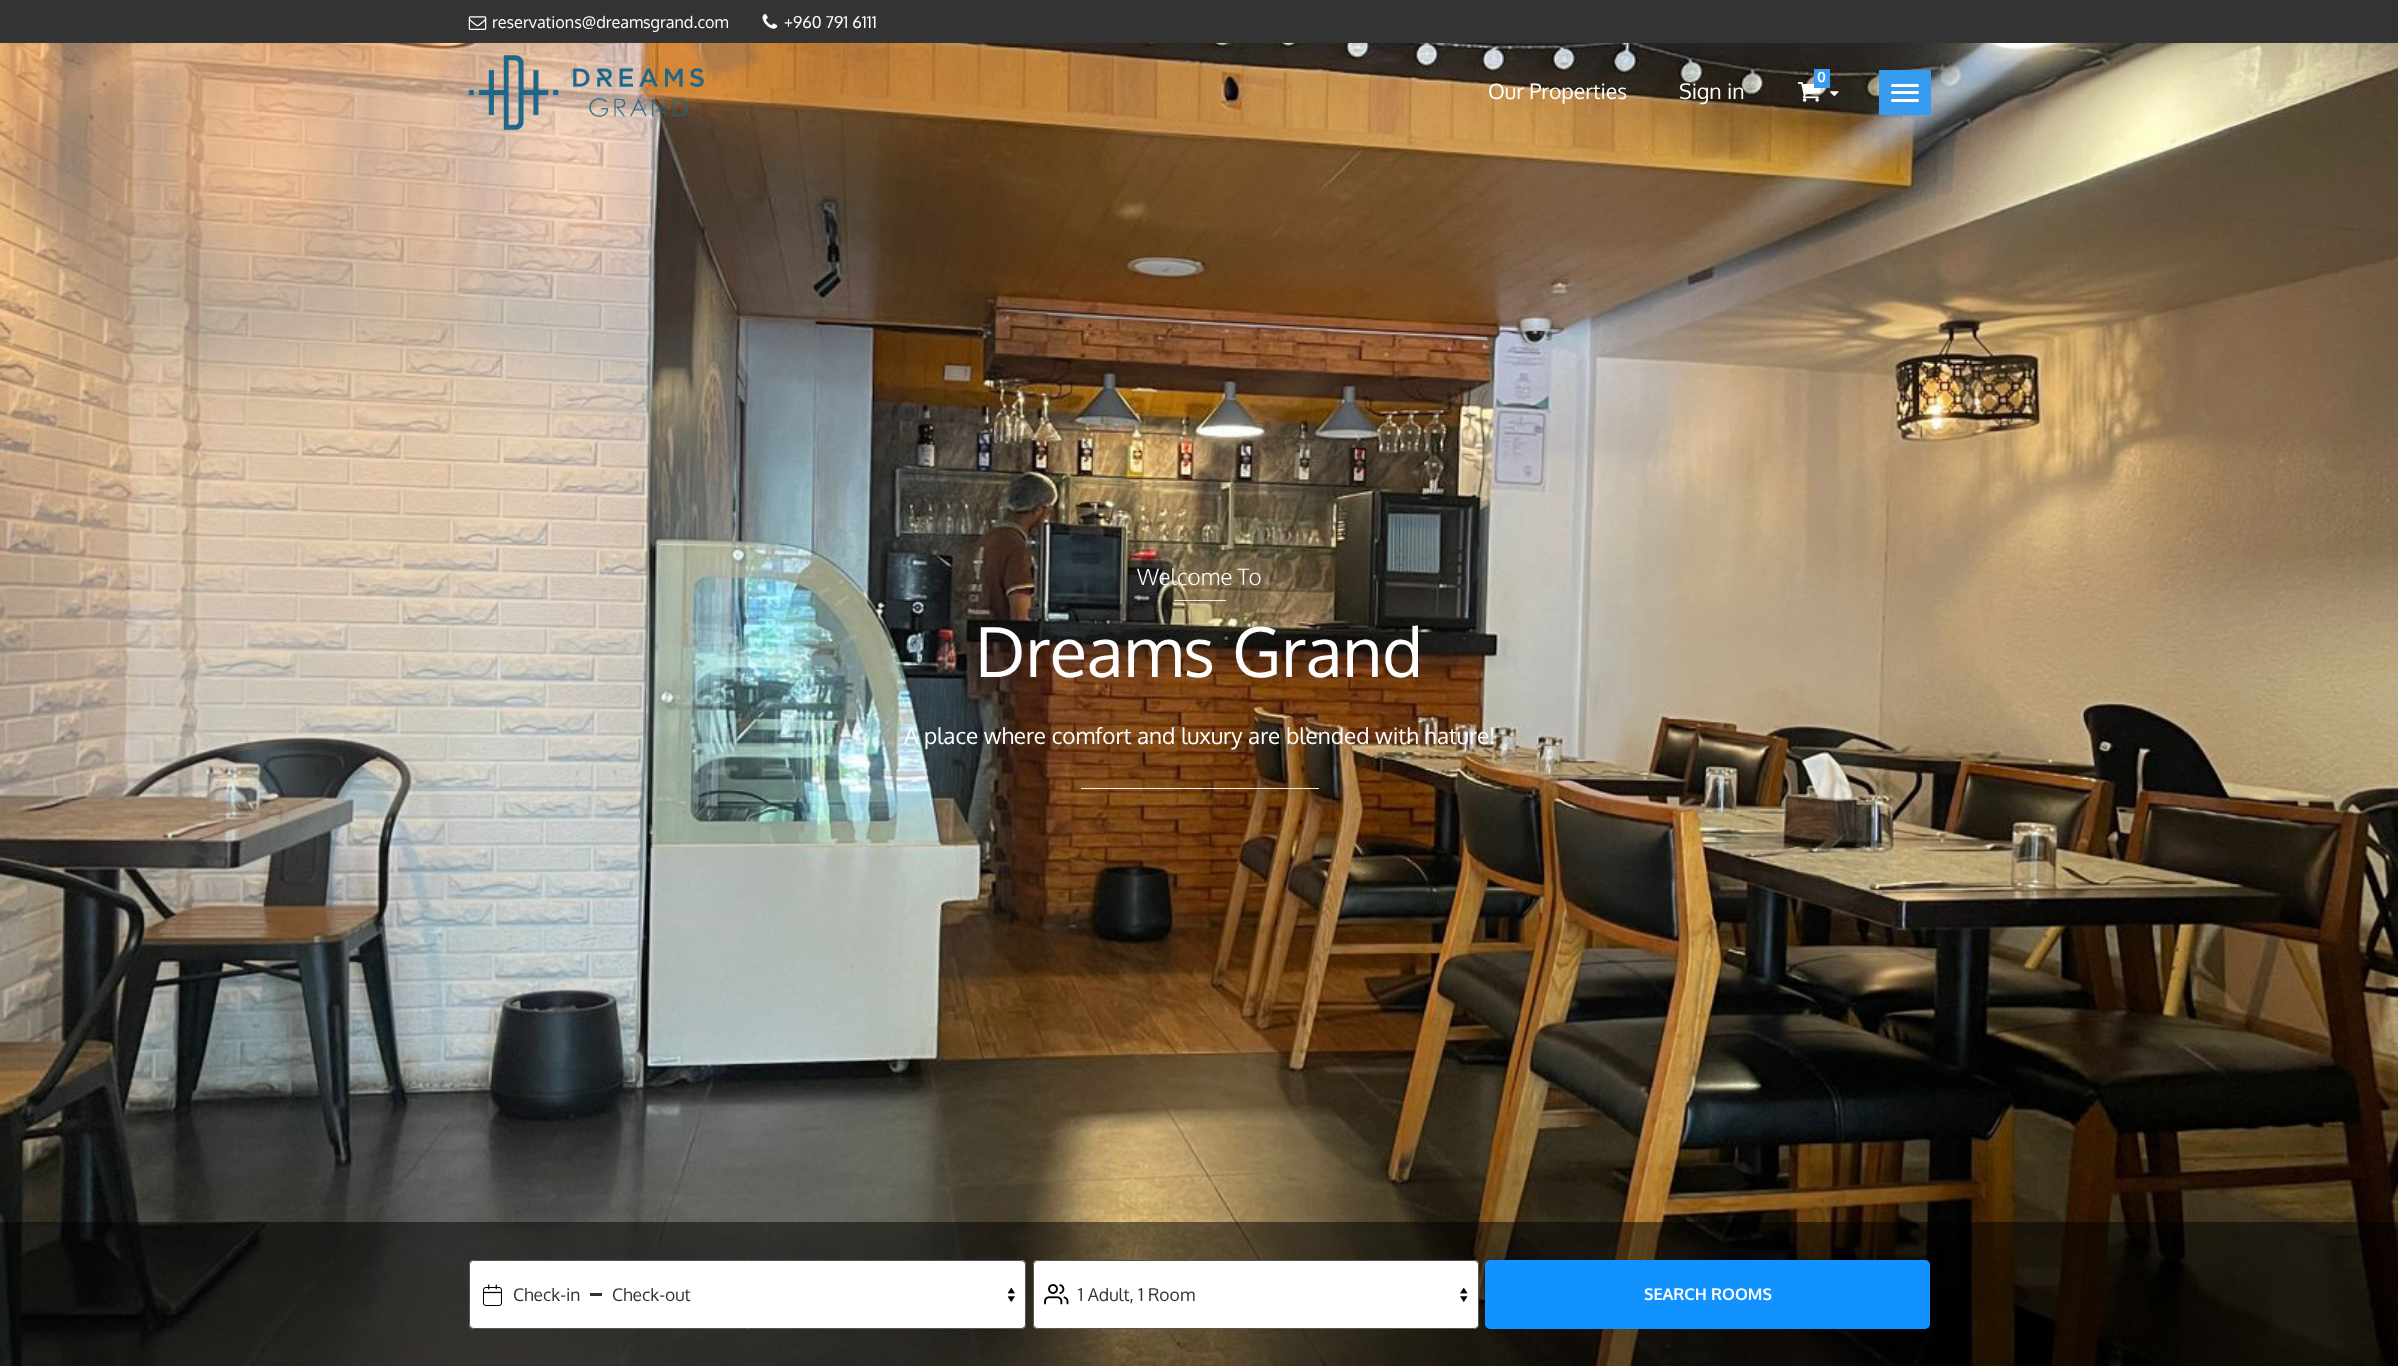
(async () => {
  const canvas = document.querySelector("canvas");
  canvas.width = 2398;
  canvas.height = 1366;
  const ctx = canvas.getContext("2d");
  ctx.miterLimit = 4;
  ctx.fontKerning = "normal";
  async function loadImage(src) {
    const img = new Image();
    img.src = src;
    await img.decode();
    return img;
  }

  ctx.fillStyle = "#ffffff";
  ctx.fillRect(0, 0, 2398, 1366);
  ctx.drawImage(await loadImage("img/1.png"), 0, 43, 2398, 1323);
  ctx.fillStyle = "#333333";
  ctx.fillRect(0, 0, 2398, 43);
  ctx.drawImage(await loadImage("img/2.png"), 468, 16, 19, 14);
  ctx.drawImage(await loadImage("img/3.png"), 762, 14, 16, 15);
  ctx.drawImage(await loadImage("img/4.png"), 468, 55, 236, 75);
  ctx.drawImage(await loadImage("img/5.png"), 1798, 82, 23, 20);
  ctx.fillStyle = "#379bf0";
  ctx.fillRect(1814, 69, 16, 19);
  ctx.drawImage(await loadImage("img/6.png"), 1830, 91, 9, 5);
  ctx.fillRect(1879, 70, 52, 45);
  ctx.fillStyle = "#ffffff";
  ctx.beginPath();
  ctx.roundRect(1891, 84, 28, 3, 1.5);
  ctx.fill();
  ctx.beginPath();
  ctx.roundRect(1891, 91, 28, 3, 1.5);
  ctx.fill();
  ctx.beginPath();
  ctx.roundRect(1891, 99, 28, 3, 1.5);
  ctx.fill();
  for (const [x, y, w, h, color] of [
    [1174, 600, 52, 1, "#eeeeee"],
    [1081, 788, 238, 1, "#eeeeee"],
    [0, 1222, 2398, 144, "rgba(0, 0, 0, 0.5)"],
  ]) {
    ctx.fillStyle = color;
    ctx.fillRect(x, y, w, h);
  }
  ctx.fillStyle = "#ffffff";
  ctx.beginPath();
  ctx.roundRect(469, 1260, 557, 69, 5);
  ctx.fill();
  ctx.drawImage(await loadImage("img/7.png"), 1008, 1288, 7, 14);
  ctx.drawImage(await loadImage("img/8.png"), 483, 1284, 19, 22);
  ctx.beginPath();
  ctx.roundRect(469.5, 1260.5, 556, 68, 4.5);
  ctx.strokeStyle = "#555555";
  ctx.stroke();
  ctx.fillStyle = "#333333";
  ctx.fillRect(590, 1293, 12, 3);
  ctx.fillStyle = "#ffffff";
  ctx.beginPath();
  ctx.roundRect(1033, 1260, 446, 69, 5);
  ctx.fill();
  ctx.drawImage(await loadImage("img/9.png"), 1460, 1288, 8, 14);
  ctx.drawImage(await loadImage("img/10.png"), 1044, 1284, 25, 21);
  ctx.beginPath();
  ctx.roundRect(1033.5, 1260.5, 445, 68, 4.5);
  ctx.stroke();
  ctx.fillStyle = "#1292ff";
  ctx.beginPath();
  ctx.roundRect(1485, 1260, 445, 69, 5);
  ctx.fill();
  ctx.font = "16.25px Oxygen";
  ctx.fillStyle = "#ffffff";
  ctx.fillText("reservations@dreamsgrand.com", 492, 28);
  ctx.fillText("+960 791 6111", 784, 28);
  ctx.font = "bold 14px Oxygen";
  ctx.fillText("0", 1817, 82);
  ctx.font = "21.25px Oxygen";
  ctx.fillText("Our Properties", 1488, 99);
  ctx.fillText("Sign in", 1679, 99);
  ctx.font = "300 22.5px Oxygen";
  ctx.fillText("Welcome To", 1137, 585);
  ctx.font = "68.75px Oxygen";
  ctx.fillText("Dreams Grand", 975, 677);
  ctx.font = "22.5px Oxygen";
  ctx.fillText("A place where comfort and luxury are blended with nature!", 904, 744);
  ctx.font = "17.5px Oxygen";
  ctx.fillStyle = "#333333";
  for (const [text, x, y] of [
    ["Check-in", 513, 1301],
    ["Check-out", 612, 1301],
    ["1 Adult, 1 Room", 1078, 1301],
  ]) {
    ctx.fillText(text, x, y);
  }
  ctx.font = "bold 16.25px Oxygen";
  ctx.fillStyle = "#ffffff";
  ctx.fillText("SEARCH ROOMS", 1644, 1300);
})();
